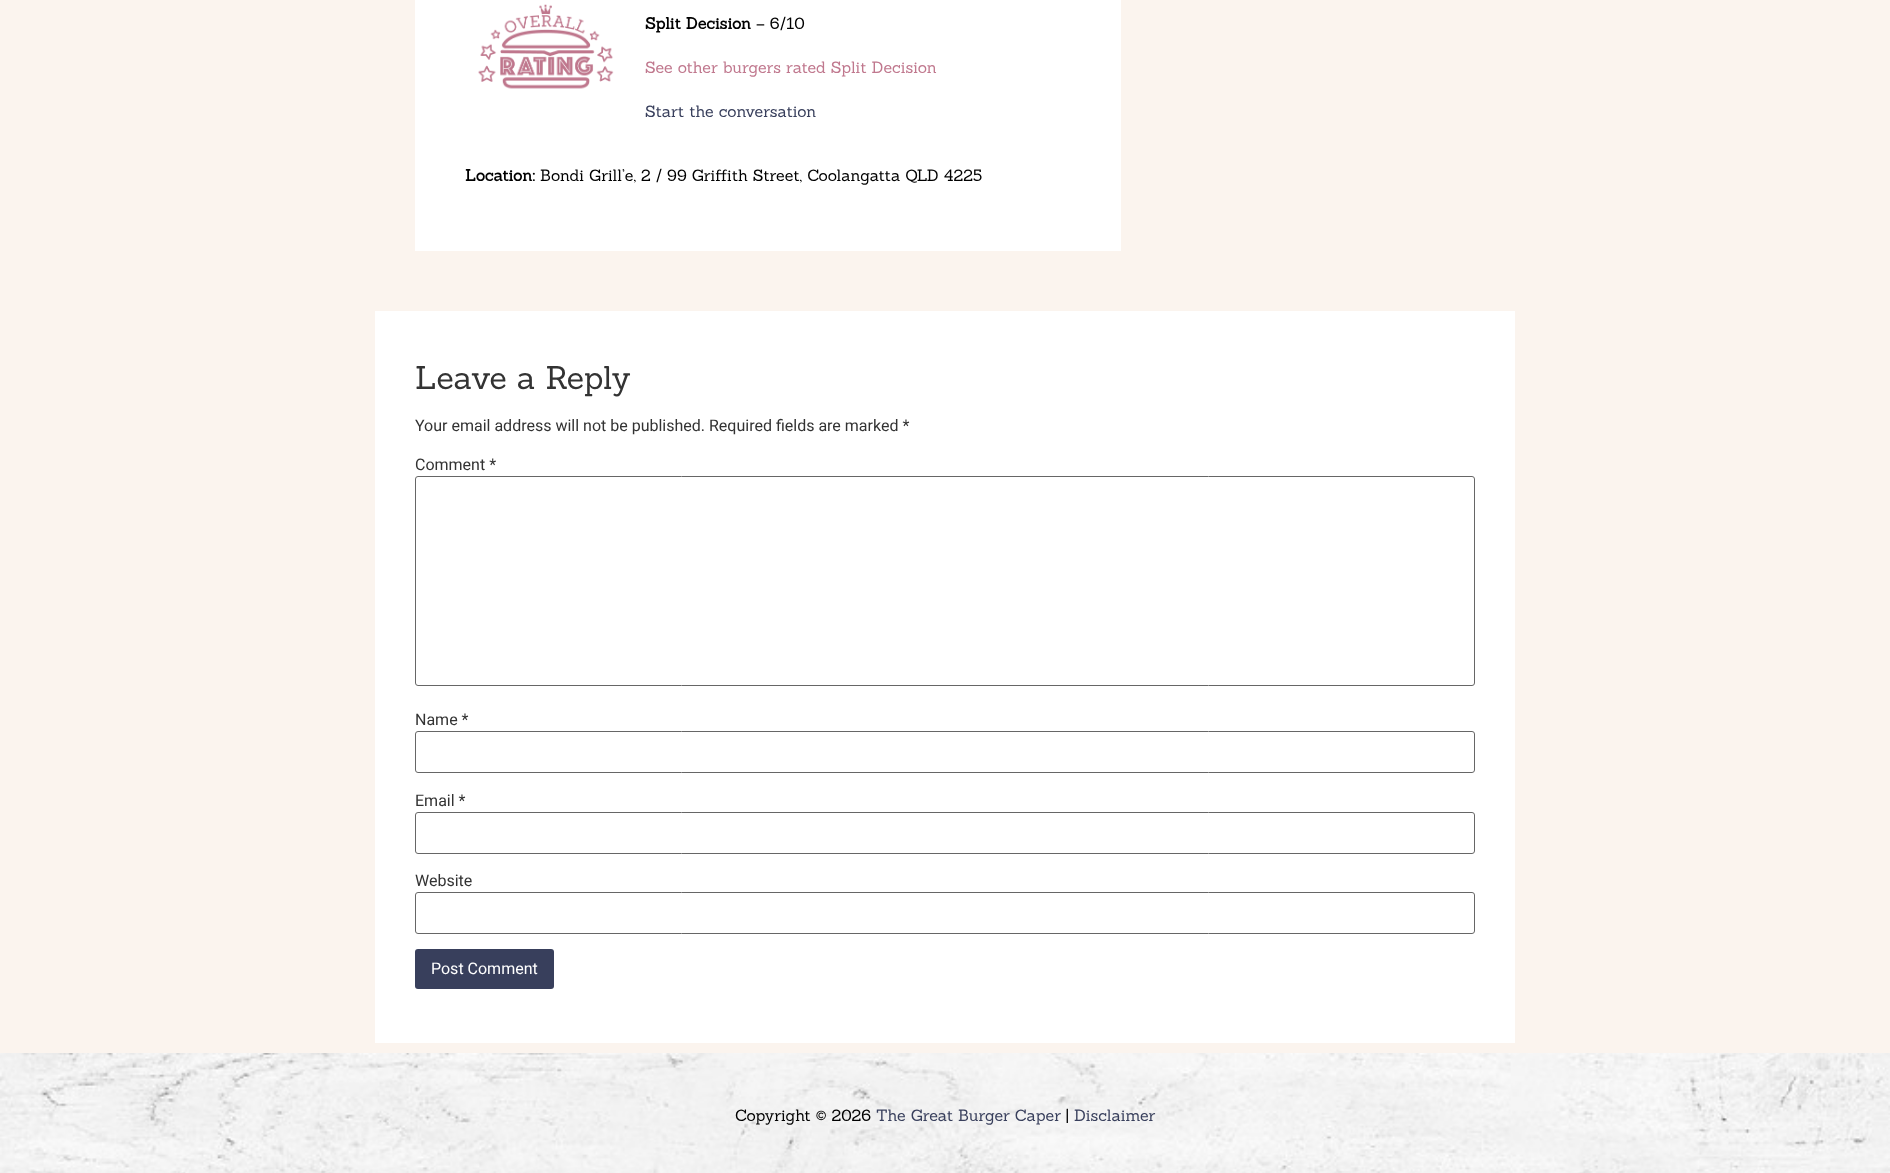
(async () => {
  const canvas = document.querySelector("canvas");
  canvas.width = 1890;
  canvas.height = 1173;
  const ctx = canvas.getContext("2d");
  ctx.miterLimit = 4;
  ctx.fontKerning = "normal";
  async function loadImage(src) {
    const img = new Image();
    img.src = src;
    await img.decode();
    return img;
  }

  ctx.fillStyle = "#fbf4ee";
  ctx.fillRect(0, 0, 1890, 1173);
  ctx.fillStyle = "#ffffff";
  ctx.fillRect(415, 0, 706, 251);
  ctx.drawImage(await loadImage("img/1.png"), 478, 4, 136, 85);
  ctx.fillRect(375, 311, 1140, 732);
  ctx.beginPath();
  ctx.roundRect(415.5, 476.5, 1059, 209, 2.5);
  ctx.strokeStyle = "#666666";
  ctx.stroke();
  ctx.beginPath();
  ctx.roundRect(415.5, 731.5, 1059, 41, 2.5);
  ctx.stroke();
  ctx.beginPath();
  ctx.roundRect(415.5, 812.5, 1059, 41, 2.5);
  ctx.stroke();
  ctx.beginPath();
  ctx.roundRect(415.5, 892.5, 1059, 41, 2.5);
  ctx.stroke();
  ctx.fillStyle = "#383f5c";
  ctx.beginPath();
  ctx.roundRect(415, 949, 139, 40, 3);
  ctx.fill();
  ctx.drawImage(await loadImage("img/2.png"), 0, 1053, 1890, 120);
  ctx.font = "bold 16px Sanchez";
  ctx.fillStyle = "#000000";
  ctx.fillText("Split Decision", 645, 29);
  ctx.font = "16px Sanchez";
  ctx.fillText("– 6/10", 756, 29);
  ctx.fillStyle = "#c0788e";
  ctx.fillText("See other burgers rated Split Decision", 645, 73);
  ctx.fillStyle = "#383f5c";
  ctx.fillText("Start the conversation", 645, 117);
  ctx.font = "bold 16px Sanchez";
  ctx.fillStyle = "#000000";
  ctx.fillText("Location:", 465, 181);
  ctx.font = "16px Sanchez";
  ctx.fillText("Bondi Grill’e, 2 / 99 Griffith Street, Coolangatta QLD 4225", 540, 181);
  ctx.font = "32px Sanchez";
  ctx.fillStyle = "#333333";
  ctx.fillText("Leave a Reply", 415, 389);
  ctx.font = "16px Roboto";
  for (const [text, x, y] of [
    ["Your email address will not be published. Required fields are marked *", 415, 431],
    ["Comment *", 415, 470],
    ["Name *", 415, 725],
    ["Email *", 415, 806],
    ["Website", 415, 886],
  ]) {
    ctx.fillText(text, x, y);
  }
  ctx.fillStyle = "#ffffff";
  ctx.fillText("Post Comment", 431, 974);
  ctx.font = "16px Sanchez";
  ctx.fillStyle = "#000000";
  ctx.fillText("Copyright © 2026", 735, 1121);
  ctx.fillStyle = "#383f5c";
  ctx.fillText("The Great Burger Caper", 876, 1121);
  ctx.fillStyle = "#000000";
  ctx.fillText("|", 1066, 1121);
  ctx.fillStyle = "#383f5c";
  ctx.fillText("Disclaimer", 1074, 1121);
})();
